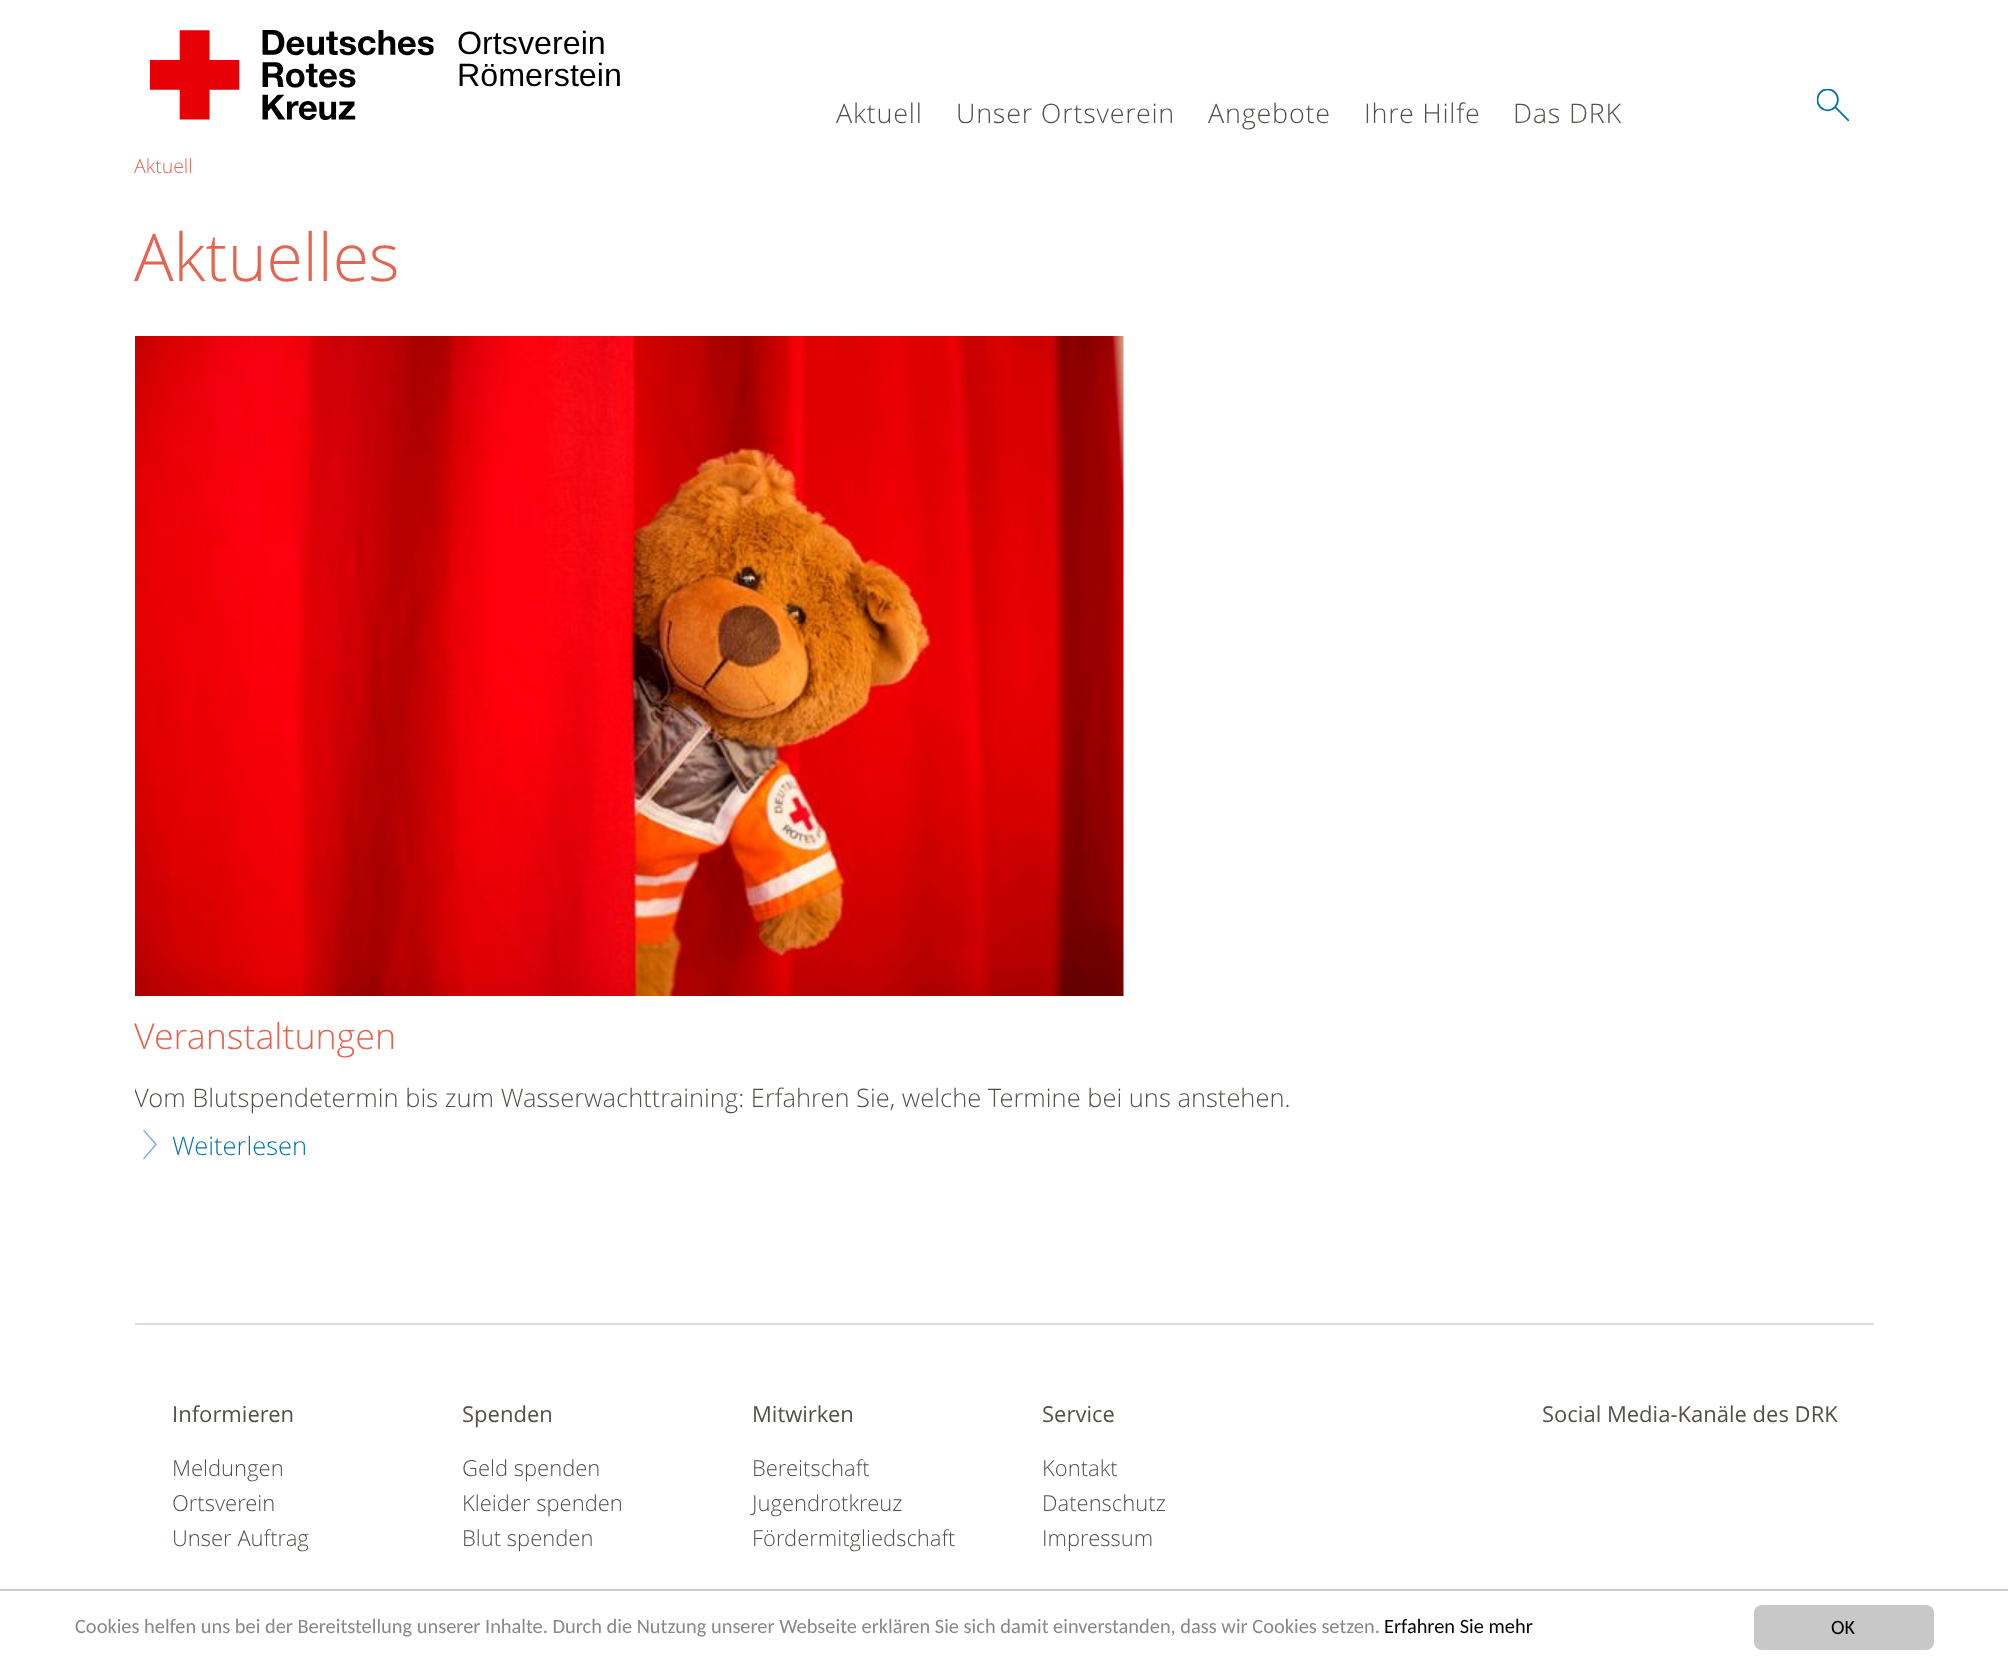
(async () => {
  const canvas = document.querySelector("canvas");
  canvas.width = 2008;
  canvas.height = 1664;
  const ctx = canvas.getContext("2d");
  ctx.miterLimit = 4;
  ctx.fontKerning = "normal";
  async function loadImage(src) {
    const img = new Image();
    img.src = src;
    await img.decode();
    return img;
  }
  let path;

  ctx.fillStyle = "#ffffff";
  ctx.fillRect(0, 0, 2008, 1664);
  ctx.drawImage(await loadImage("img/1.png"), 150, 30, 284, 90);
  ctx.drawImage(await loadImage("img/2.png"), 1816, 88, 34, 34);
  ctx.drawImage(await loadImage("img/3.png"), 135, 336, 989, 660);
  ctx.fillStyle = "#80ade4";
  path = new Path2D("M144 1159.5L143 1158.5L155 1144.5L143 1130.5L144 1129.5L157 1144.5Z");
  ctx.fill(path);
  ctx.fillStyle = "#e0ddd6";
  ctx.fillRect(135, 1323, 1739, 2);
  ctx.fillStyle = "#cccccc";
  ctx.fillRect(0, 1589, 2008, 2);
  ctx.fillStyle = "#c8c8c8";
  ctx.beginPath();
  ctx.roundRect(1754, 1605, 180, 45, 8);
  ctx.fill();
  ctx.font = "32.25px Liberation Sans";
  ctx.fillStyle = "#000000";
  ctx.fillText("Ortsverein", 457, 54);
  ctx.fillText("Römerstein", 457, 86);
  ctx.letterSpacing = "0.75px";
  ctx.font = "300 27px Open Sans";
  ctx.fillStyle = "#554f4a";
  for (const [text, x, y] of [
    ["Aktuell", 836, 123],
    ["Unser Ortsverein", 956, 123],
    ["Angebote", 1208, 123],
    ["Ihre Hilfe", 1364, 123],
    ["Das DRK", 1513, 123],
  ]) {
    ctx.fillText(text, x, y);
  }
  ctx.letterSpacing = "0px";
  ctx.font = "300 19.5px Open Sans";
  ctx.fillStyle = "#e46450";
  ctx.fillText("Aktuell", 134, 173);
  ctx.font = "300 66px Open Sans";
  ctx.fillText("Aktuelles", 134, 281);
  ctx.font = "300 35.75px Open Sans";
  ctx.fillText("Veranstaltungen", 134, 1049);
  ctx.save();
  ctx.beginPath();
  ctx.rect(135, 1014, 1740, 189);
  ctx.clip();
  ctx.font = "300 25.5px Open Sans";
  ctx.fillStyle = "#554f4a";
  ctx.fillText("Vom Blutspendetermin bis zum Wasserwachttraining: Erfahren Sie, welche Termine bei uns anstehen.", 134, 1107);
  ctx.restore();
  ctx.font = "300 25.5px Open Sans";
  ctx.fillStyle = "#0075a9";
  ctx.fillText("Weiterlesen", 172, 1155);
  ctx.font = "22px Open Sans";
  ctx.fillStyle = "#554f4a";
  ctx.fillText("Informieren", 172, 1422);
  ctx.font = "300 22px Open Sans";
  for (const [text, x, y] of [
    ["Meldungen", 172, 1476],
    ["Ortsverein", 172, 1511],
    ["Unser Auftrag", 172, 1546],
  ]) {
    ctx.fillText(text, x, y);
  }
  ctx.font = "22px Open Sans";
  ctx.fillText("Spenden", 462, 1422);
  ctx.font = "300 22px Open Sans";
  for (const [text, x, y] of [
    ["Geld spenden", 462, 1476],
    ["Kleider spenden", 462, 1511],
    ["Blut spenden", 462, 1546],
  ]) {
    ctx.fillText(text, x, y);
  }
  ctx.font = "22px Open Sans";
  ctx.fillText("Mitwirken", 752, 1422);
  ctx.font = "300 22px Open Sans";
  for (const [text, x, y] of [
    ["Bereitschaft", 752, 1476],
    ["Jugendrotkreuz", 752, 1511],
    ["Fördermitgliedschaft", 752, 1546],
  ]) {
    ctx.fillText(text, x, y);
  }
  ctx.font = "22px Open Sans";
  ctx.fillText("Service", 1042, 1422);
  ctx.font = "300 22px Open Sans";
  for (const [text, x, y] of [
    ["Kontakt", 1042, 1476],
    ["Datenschutz", 1042, 1511],
    ["Impressum", 1042, 1546],
  ]) {
    ctx.fillText(text, x, y);
  }
  ctx.font = "22px Open Sans";
  ctx.fillText("Social Media-Kanäle des DRK", 1542, 1422);
  ctx.font = "20.4px Carlito";
  ctx.fillStyle = "#888888";
  ctx.fillText("Cookies helfen uns bei der Bereitstellung unserer Inhalte. Durch die Nutzung unserer Webseite erklären Sie sich damit einverstanden, dass wir Cookies setzen.", 75, 1633);
  ctx.fillStyle = "#000000";
  ctx.fillText("Erfahren Sie mehr", 1384, 1633);
  ctx.fillText("OK", 1831, 1634);
})();
